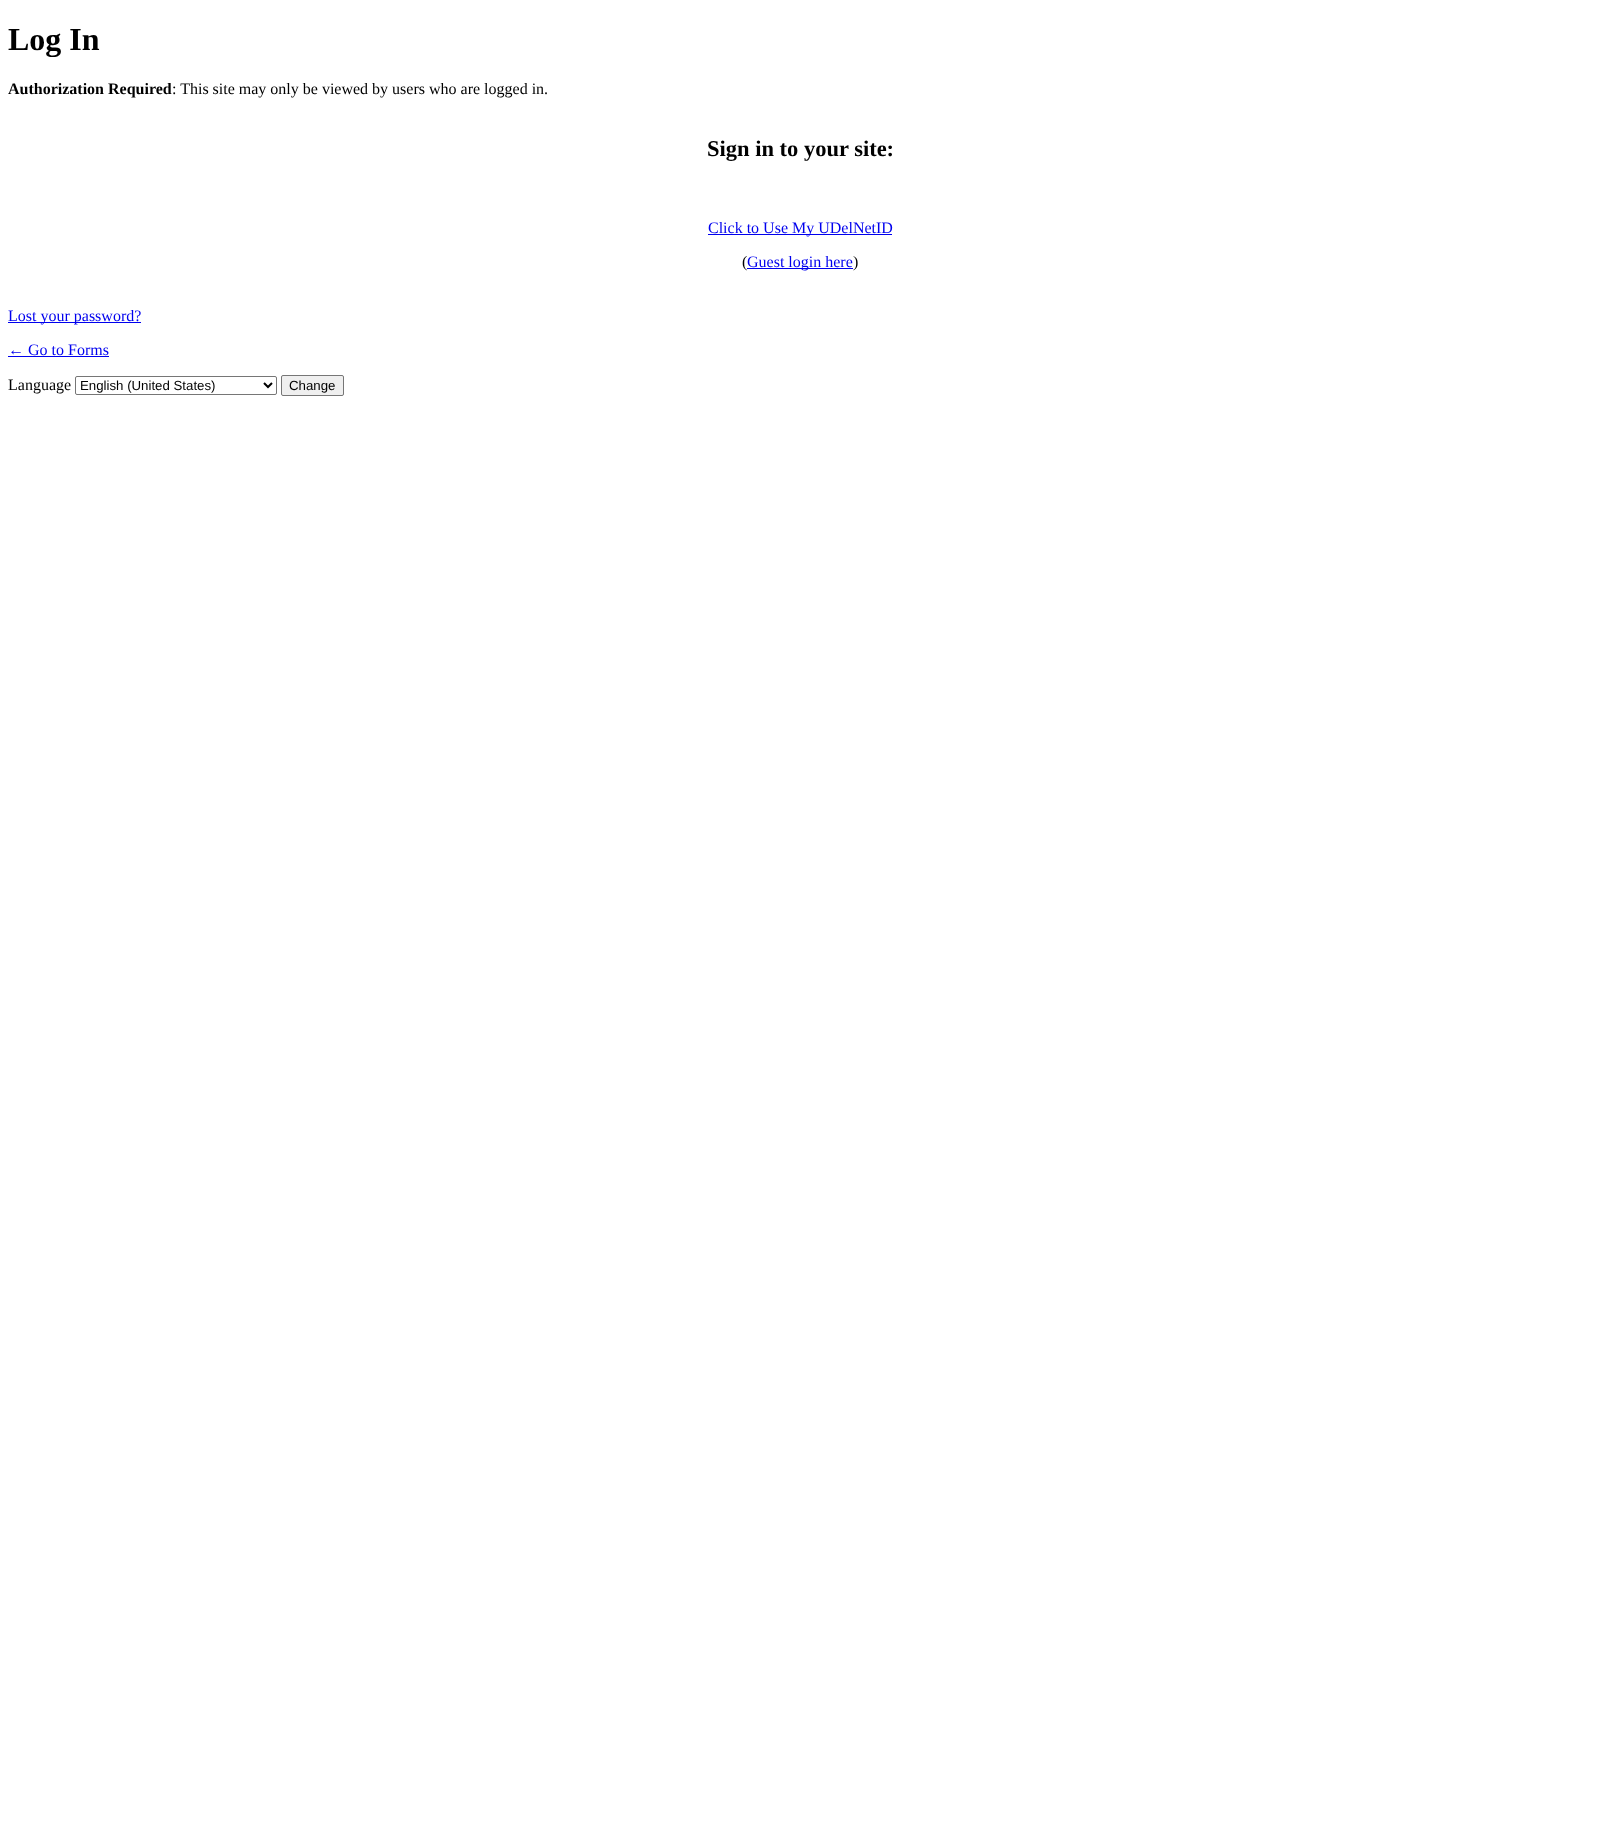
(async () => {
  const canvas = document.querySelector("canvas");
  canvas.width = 1600;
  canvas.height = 1840;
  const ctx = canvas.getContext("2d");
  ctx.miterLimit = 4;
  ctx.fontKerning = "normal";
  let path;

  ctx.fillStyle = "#ffffff";
  ctx.fillRect(0, 0, 1600, 1840);
  for (const [x, y, w, h, color] of [
    [708, 234, 184, 1, "#0000ee"],
    [747, 268, 106, 1, "#0000ee"],
    [8, 322, 133, 1, "#0000ee"],
    [8, 356, 101, 1, "#0000ee"],
  ]) {
    ctx.fillStyle = color;
    ctx.fillRect(x, y, w, h);
  }
  ctx.beginPath();
  ctx.roundRect(75.5, 376.5, 201, 18, 1.5);
  ctx.strokeStyle = "#767676";
  ctx.stroke();
  path = new Path2D("M264 383L268 387L272 383");
  ctx.strokeStyle = "#000000";
  ctx.lineWidth = 2;
  ctx.stroke(path);
  ctx.fillStyle = "#efefef";
  ctx.beginPath();
  ctx.roundRect(281.5, 375.5, 62, 20, 1.5);
  ctx.fill();
  ctx.strokeStyle = "#767676";
  ctx.lineWidth = 1;
  ctx.stroke();
  ctx.font = "bold 32px Liberation Serif";
  ctx.fillStyle = "#000000";
  ctx.fillText("Log In", 8, 50);
  ctx.font = "bold 16px Liberation Serif";
  ctx.fillText("Authorization Required", 8, 94);
  ctx.font = "16px Liberation Serif";
  ctx.fillText(": This site may only be viewed by users who are logged in.", 172, 94);
  ctx.font = "bold 22.5px Liberation Serif";
  ctx.fillText("Sign in to your site:", 707, 156);
  ctx.font = "16px Liberation Serif";
  ctx.fillStyle = "#0000ee";
  ctx.fillText("Click to Use My UDelNetID", 708, 233);
  ctx.fillStyle = "#000000";
  ctx.fillText("(", 742, 267);
  ctx.fillStyle = "#0000ee";
  ctx.fillText("Guest login here", 747, 267);
  ctx.fillStyle = "#000000";
  ctx.fillText(")", 853, 267);
  ctx.fillStyle = "#0000ee";
  ctx.fillText("Lost your password?", 8, 321);
  ctx.fillText("← Go to Forms", 8, 355);
  ctx.fillStyle = "#000000";
  ctx.fillText("Language", 8, 390);
  ctx.font = "13.25px Liberation Sans";
  ctx.fillText("English (United States)", 80, 390);
  ctx.fillText("Change", 289, 390);
})();
